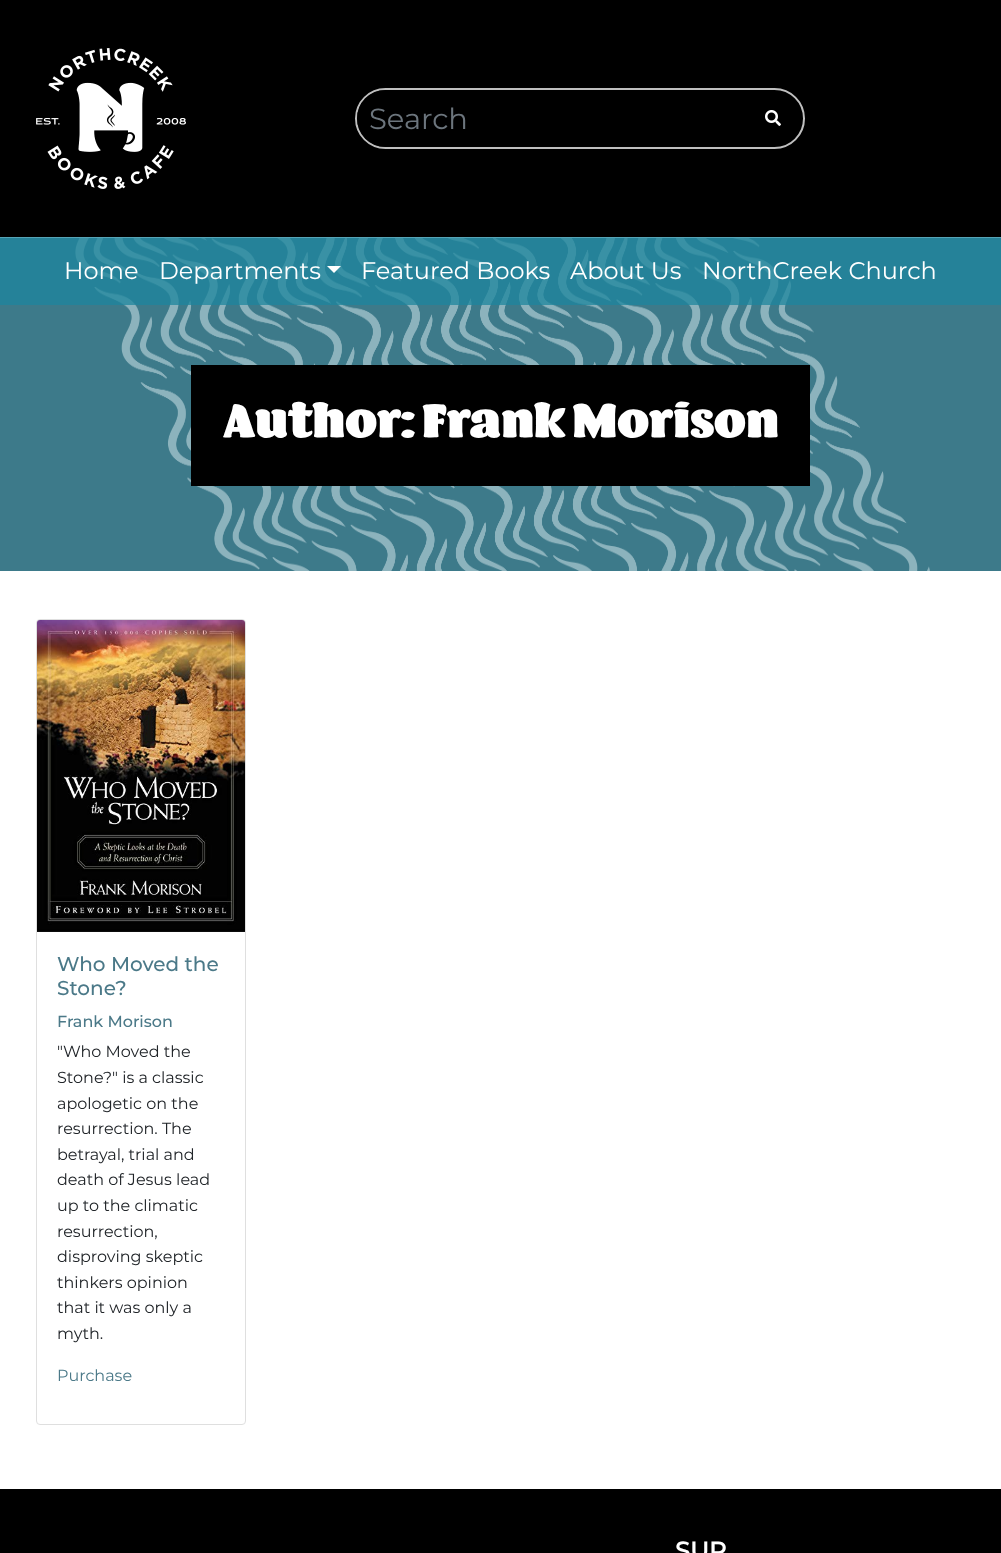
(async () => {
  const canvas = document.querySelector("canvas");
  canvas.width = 1001;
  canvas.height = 1553;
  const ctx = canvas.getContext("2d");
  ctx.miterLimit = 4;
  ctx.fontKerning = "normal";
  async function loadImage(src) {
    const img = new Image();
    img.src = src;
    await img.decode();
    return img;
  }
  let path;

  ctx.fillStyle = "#ffffff";
  ctx.fillRect(0, 0, 1001, 1553);
  ctx.fillStyle = "#000000";
  ctx.fillRect(0, 0, 1001, 237);
  ctx.drawImage(await loadImage("img/1.png"), 36, 48, 150, 141);
  ctx.beginPath();
  ctx.roundRect(356, 89, 448, 59, 29.5);
  ctx.strokeStyle = "#bfbfbf";
  ctx.lineWidth = 2;
  ctx.stroke();
  ctx.fillStyle = "rgba(0, 0, 0, 0.75)";
  ctx.beginPath();
  ctx.roundRect(357, 90, 372, 57, 28.5);
  ctx.fill();
  ctx.drawImage(await loadImage("img/2.png"), 765, 110, 16, 16);
  ctx.drawImage(await loadImage("img/3.png"), 0, 238, 1001, 333);
  ctx.fillStyle = "rgba(30, 133, 158, 0.75)";
  ctx.fillRect(0, 237, 1001, 68);
  ctx.fillStyle = "#ffffff";
  path = new Path2D("M327 266H341L334 273Z");
  ctx.fill(path);
  ctx.fillStyle = "#000000";
  ctx.fillRect(191, 365, 619, 121);
  ctx.beginPath();
  ctx.roundRect(36.5, 619.5, 209, 805, 3.5);
  ctx.strokeStyle = "#dfdfdf";
  ctx.lineWidth = 1;
  ctx.stroke();
  ctx.drawImage(await loadImage("img/4.png"), 37, 620, 208, 312);
  ctx.fillRect(0, 1489, 1001, 64);
  ctx.font = "29px Montserrat";
  ctx.fillStyle = "#6c757d";
  ctx.fillText("Search", 369, 129);
  ctx.font = "24px Montserrat";
  ctx.fillStyle = "#ffffff";
  for (const [text, x, y] of [
    ["Home", 64, 279],
    ["Departments", 159, 279],
    ["Featured Books", 361, 279],
    ["About Us", 570, 279],
    ["NorthCreek Church", 702, 279],
  ]) {
    ctx.fillText(text, x, y);
  }
  ctx.font = "48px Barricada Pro";
  ctx.fillText("Author: Frank Morison", 223, 437);
  ctx.font = "500 20px Montserrat";
  ctx.fillStyle = "#4b7988";
  ctx.fillText("Who Moved the", 57, 971);
  ctx.fillText("Stone?", 57, 995);
  ctx.font = "500 16px Montserrat";
  ctx.fillText("Frank Morison", 57, 1027);
  ctx.font = "16px Montserrat";
  ctx.fillStyle = "#212529";
  for (const [text, x, y] of [
    ["\"Who Moved the", 57, 1057],
    ["Stone?\" is a classic", 57, 1083],
    ["apologetic on the", 57, 1109],
    ["resurrection. The", 57, 1134],
    ["betrayal, trial and", 57, 1160],
    ["death of Jesus lead", 57, 1185],
    ["up to the climatic", 57, 1211],
    ["resurrection,", 57, 1237],
    ["disproving skeptic", 57, 1262],
    ["thinkers opinion", 57, 1288],
    ["that it was only a", 57, 1313],
    ["myth.", 57, 1339],
  ]) {
    ctx.fillText(text, x, y);
  }
  ctx.fillStyle = "#4b7988";
  ctx.fillText("Purchase", 57, 1381);
  ctx.font = "bold 24px Montserrat";
  ctx.fillStyle = "#ffffff";
  ctx.fillText("SUP", 675, 1559);
})();
